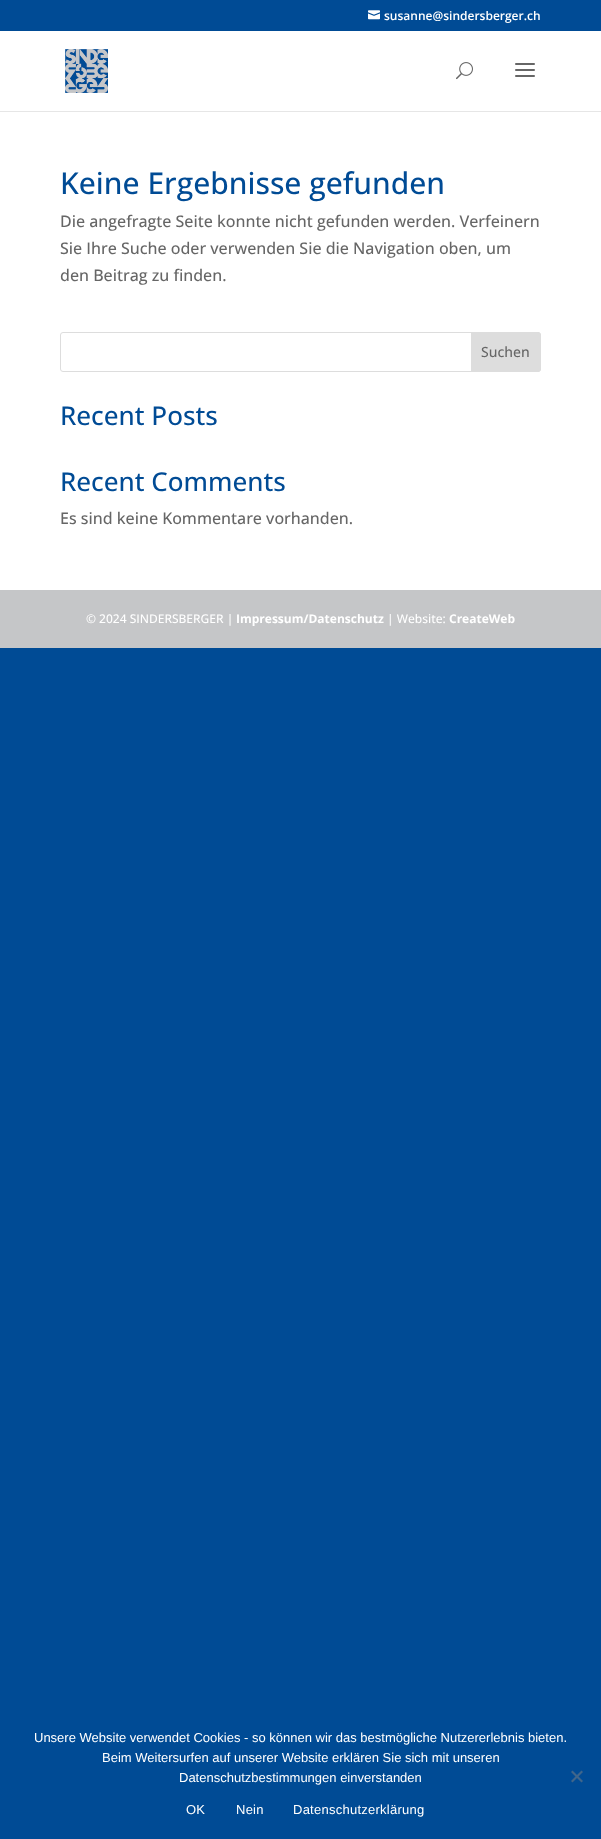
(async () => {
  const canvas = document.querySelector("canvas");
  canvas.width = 601;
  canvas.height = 1839;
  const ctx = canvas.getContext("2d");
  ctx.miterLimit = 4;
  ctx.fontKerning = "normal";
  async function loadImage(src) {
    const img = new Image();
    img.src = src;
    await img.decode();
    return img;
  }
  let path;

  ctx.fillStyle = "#004b95";
  ctx.fillRect(0, 0, 601, 1839);
  ctx.drawImage(await loadImage("img/1.png"), 368, 10, 12, 10);
  ctx.fillStyle = "#e6e6e6";
  ctx.fillRect(0, 111, 601, 1);
  ctx.fillStyle = "#ffffff";
  ctx.fillRect(0, 31, 601, 80);
  ctx.drawImage(await loadImage("img/2.png"), 65, 49, 43, 44);
  ctx.drawImage(await loadImage("img/3.png"), 456, 62, 17, 18);
  ctx.drawImage(await loadImage("img/4.png"), 515, 63, 20, 14);
  ctx.fillRect(0, 112, 601, 478);
  ctx.beginPath();
  ctx.roundRect(60.5, 332.5, 480, 39, 2.5);
  ctx.strokeStyle = "#dddddd";
  ctx.stroke();
  ctx.fillStyle = "#dddddd";
  ctx.beginPath();
  ctx.roundRect(471.5, 332.5, 69, 39, [0, 2.5, 2.5, 0]);
  ctx.fill();
  ctx.stroke();
  ctx.fillStyle = "#c5c6c8";
  ctx.fillRect(0, 590, 601, 58);
  ctx.fillStyle = "#40668b";
  path = new Path2D("M581.5 1770.5L583 1772L572.5 1782.5L571 1781Z");
  ctx.fill(path);
  path = new Path2D("M571 1772L572.5 1770.5L583 1781L581.5 1782.5Z");
  ctx.fill(path);
  ctx.font = "600 12px Open Sans";
  ctx.fillStyle = "#ffffff";
  ctx.fillText("susanne@sindersberger.ch", 384, 20);
  ctx.font = "500 30px Open Sans";
  ctx.fillStyle = "#004b95";
  ctx.fillText("Keine Ergebnisse gefunden", 60, 194);
  ctx.font = "500 16px Open Sans";
  ctx.fillStyle = "#666666";
  for (const [text, x, y] of [
    ["Die angefragte Seite konnte nicht gefunden werden. Verfeinern", 60, 227],
    ["Sie Ihre Suche oder verwenden Sie die Navigation oben, um", 60, 254],
    ["den Beitrag zu finden.", 60, 281],
  ]) {
    ctx.fillText(text, x, y);
  }
  ctx.font = "500 14px Open Sans";
  ctx.fillText("Suchen", 481, 357);
  ctx.font = "500 26px Open Sans";
  ctx.fillStyle = "#004b95";
  ctx.fillText("Recent Posts", 60, 425);
  ctx.fillText("Recent Comments", 60, 491);
  ctx.font = "500 16px Open Sans";
  ctx.fillStyle = "#666666";
  ctx.fillText("Es sind keine Kommentare vorhanden.", 60, 524);
  ctx.font = "500 12px Open Sans";
  ctx.fillStyle = "#ffffff";
  ctx.fillText("© 2024 SINDERSBERGER |", 86, 623);
  ctx.font = "bold 12px Open Sans";
  ctx.fillText("Impressum/Datenschutz", 236, 623);
  ctx.font = "500 12px Open Sans";
  ctx.fillText("| Website:", 387, 623);
  ctx.font = "bold 12px Open Sans";
  ctx.fillText("CreateWeb", 449, 623);
  ctx.font = "13px Liberation Sans";
  for (const [text, x, y] of [
    ["Unsere Website verwendet Cookies - so können wir das bestmögliche Nutzererlebnis bieten.", 34, 1742],
    ["Beim Weitersurfen auf unserer Website erklären Sie sich mit unseren", 102, 1762],
    ["Datenschutzbestimmungen einverstanden", 179, 1782],
  ]) {
    ctx.fillText(text, x, y);
  }
  ctx.letterSpacing = "0.25px";
  for (const [text, x, y] of [
    ["OK", 186, 1814],
    ["Nein", 236, 1814],
    ["Datenschutzerklärung", 293, 1814],
  ]) {
    ctx.fillText(text, x, y);
  }
})();
